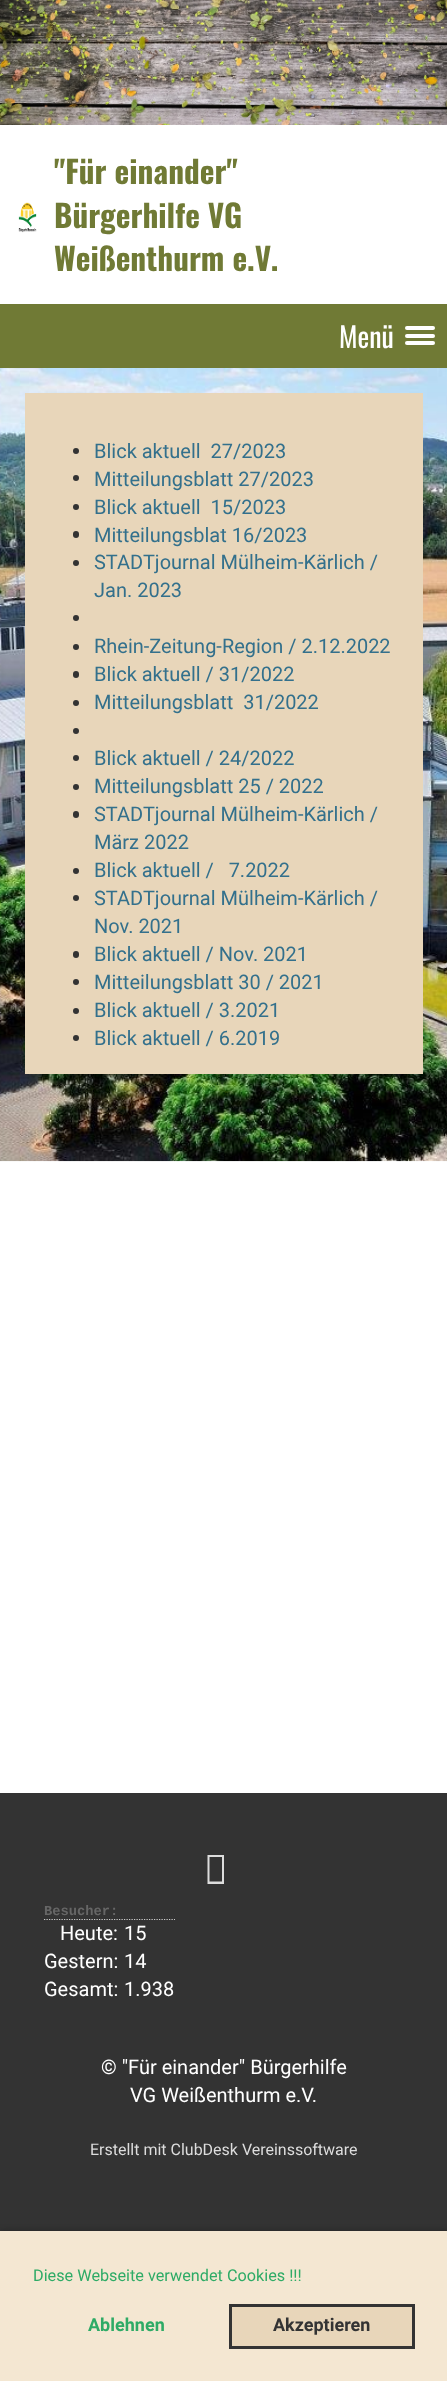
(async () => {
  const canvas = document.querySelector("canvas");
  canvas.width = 447;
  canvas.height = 2381;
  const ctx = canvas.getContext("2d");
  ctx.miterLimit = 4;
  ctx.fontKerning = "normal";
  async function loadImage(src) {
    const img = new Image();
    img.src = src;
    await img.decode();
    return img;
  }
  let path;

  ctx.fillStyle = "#ffffff";
  ctx.fillRect(0, 0, 447, 2381);
  ctx.drawImage(await loadImage("img/1.png"), 0, 0, 447, 125);
  ctx.drawImage(await loadImage("img/2.png"), 18, 202, 19, 31);
  ctx.fillStyle = "#707a35";
  ctx.fillRect(0, 304, 447, 64);
  ctx.fillStyle = "#ffffff";
  ctx.beginPath();
  ctx.roundRect(405, 326, 30, 4, 2);
  ctx.fill();
  ctx.beginPath();
  ctx.roundRect(405, 334, 30, 4, 2);
  ctx.fill();
  ctx.beginPath();
  ctx.roundRect(405, 341, 30, 4, 2);
  ctx.fill();
  ctx.drawImage(await loadImage("img/3.png"), 0, 368, 447, 794);
  ctx.fillStyle = "#e8d6ba";
  ctx.fillRect(25, 393, 398, 681);
  ctx.fillStyle = "#333333";
  ctx.beginPath();
  ctx.arc(76, 451, 3, 0, Math.PI * 2);
  ctx.fill();
  ctx.beginPath();
  ctx.arc(76, 478, 3, 0, Math.PI * 2);
  ctx.fill();
  ctx.beginPath();
  ctx.arc(76, 507, 3, 0, Math.PI * 2);
  ctx.fill();
  ctx.beginPath();
  ctx.roundRect(73, 531, 6, 7, 3);
  ctx.fill();
  ctx.beginPath();
  ctx.arc(76, 563, 3, 0, Math.PI * 2);
  ctx.fill();
  ctx.beginPath();
  ctx.arc(76, 618, 3, 0, Math.PI * 2);
  ctx.fill();
  ctx.beginPath();
  ctx.arc(76, 647, 3, 0, Math.PI * 2);
  ctx.fill();
  ctx.beginPath();
  ctx.roundRect(73, 671, 6, 7, 3);
  ctx.fill();
  ctx.beginPath();
  ctx.arc(76, 703, 3, 0, Math.PI * 2);
  ctx.fill();
  ctx.beginPath();
  ctx.arc(76, 731, 3, 0, Math.PI * 2);
  ctx.fill();
  ctx.beginPath();
  ctx.arc(76, 758, 3, 0, Math.PI * 2);
  ctx.fill();
  ctx.beginPath();
  ctx.arc(76, 787, 3, 0, Math.PI * 2);
  ctx.fill();
  ctx.beginPath();
  ctx.roundRect(73, 811, 6, 7, 3);
  ctx.fill();
  ctx.beginPath();
  ctx.arc(76, 871, 3, 0, Math.PI * 2);
  ctx.fill();
  ctx.beginPath();
  ctx.arc(76, 898, 3, 0, Math.PI * 2);
  ctx.fill();
  ctx.beginPath();
  ctx.roundRect(73, 951, 6, 7, 3);
  ctx.fill();
  ctx.beginPath();
  ctx.arc(76, 982, 3, 0, Math.PI * 2);
  ctx.fill();
  ctx.beginPath();
  ctx.arc(76, 1011, 3, 0, Math.PI * 2);
  ctx.fill();
  ctx.beginPath();
  ctx.arc(76, 1038, 3, 0, Math.PI * 2);
  ctx.fill();
  ctx.fillRect(0, 1793, 447, 438);
  ctx.fillStyle = "#dddddd";
  path = new Path2D("M207.5 1884V1855H224V1884ZM209.5 1881.5H222V1857H209.5Z");
  ctx.fill(path);
  path = new Path2D("M44 1919.5H175");
  ctx.strokeStyle = "#cccccc";
  ctx.lineWidth = 1.2;
  ctx.setLineDash([1.25, 1.25]);
  ctx.stroke(path);
  ctx.fillStyle = "rgba(0, 0, 0, 0.3)";
  ctx.filter = "blur(3px)";
  ctx.beginPath();
  ctx.rect(0, 2231, 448, 150);
  ctx.fill();
  ctx.filter = "none";
  ctx.fillStyle = "#f4e7d2";
  ctx.fillRect(0, 2231, 447, 150);
  ctx.fillStyle = "#e8d6ba";
  ctx.beginPath();
  ctx.rect(230.5, 2305.5, 183, 42);
  ctx.fill();
  ctx.strokeStyle = "#333333";
  ctx.lineWidth = 3;
  ctx.setLineDash([]);
  ctx.stroke();
  ctx.font = "bold 31.25px Oswald";
  ctx.fillStyle = "#707a35";
  for (const [text, x, y] of [
    ["\"Für einander\"", 54, 184],
    ["Bürgerhilfe VG", 54, 228],
    ["Weißenthurm e.V.", 54, 271],
  ]) {
    ctx.fillText(text, x, y);
  }
  ctx.font = "28px Oswald";
  ctx.fillStyle = "#ffffff";
  ctx.fillText("Menü", 339, 348);
  ctx.font = "20px Roboto";
  ctx.fillStyle = "#33708c";
  for (const [text, x, y] of [
    ["Blick aktuell  27/2023", 94, 458],
    ["Mitteilungsblatt 27/2023", 94, 486],
    ["Blick aktuell  15/2023", 94, 514],
    ["Mitteilungsblat 16/2023", 94, 542],
    ["STADTjournal Mülheim-Kärlich /", 94, 569],
    ["Jan. 2023", 94, 597],
    ["Rhein-Zeitung-Region / 2.12.2022", 94, 653],
    ["Blick aktuell / 31/2022", 94, 681],
    ["Mitteilungsblatt  31/2022", 94, 709],
    ["Blick aktuell / 24/2022", 94, 765],
    ["Mitteilungsblatt 25 / 2022", 94, 793],
    ["STADTjournal Mülheim-Kärlich /", 94, 821],
    ["März 2022", 94, 849],
    ["Blick aktuell /   7.2022", 94, 877],
    ["STADTjournal Mülheim-Kärlich /", 94, 905],
    ["Nov. 2021", 94, 933],
    ["Blick aktuell / Nov. 2021", 94, 961],
    ["Mitteilungsblatt 30 / 2021", 94, 989],
    ["Blick aktuell / 3.2021", 94, 1017],
    ["Blick aktuell / 6.2019", 94, 1045],
  ]) {
    ctx.fillText(text, x, y);
  }
  ctx.font = "bold 13.75px Liberation Mono";
  ctx.fillStyle = "#666666";
  ctx.fillText("Besucher:", 44, 1915);
  ctx.font = "20px Roboto";
  ctx.fillStyle = "#ffffff";
  for (const [text, x, y] of [
    ["Heute:", 60, 1940],
    ["15", 124, 1940],
    ["Gestern:", 44, 1968],
    ["14", 124, 1968],
    ["Gesamt:", 44, 1996],
    ["1.938", 124, 1996],
    ["© \"Für einander\" Bürgerhilfe", 101, 2074],
    ["VG Weißenthurm e.V.", 130, 2102],
  ]) {
    ctx.fillText(text, x, y);
  }
  ctx.font = "16px Roboto";
  ctx.fillStyle = "#dddddd";
  ctx.fillText("Erstellt mit ClubDesk Vereinssoftware", 90, 2155);
  ctx.font = "16.25px Roboto";
  ctx.fillStyle = "#2eab66";
  ctx.fillText("Diese Webseite verwendet Cookies !!!", 33, 2281);
  ctx.font = "bold 18px Roboto";
  ctx.fillText("Ablehnen", 88, 2331);
  ctx.fillStyle = "#333333";
  ctx.fillText("Akzeptieren", 273, 2331);
})();
